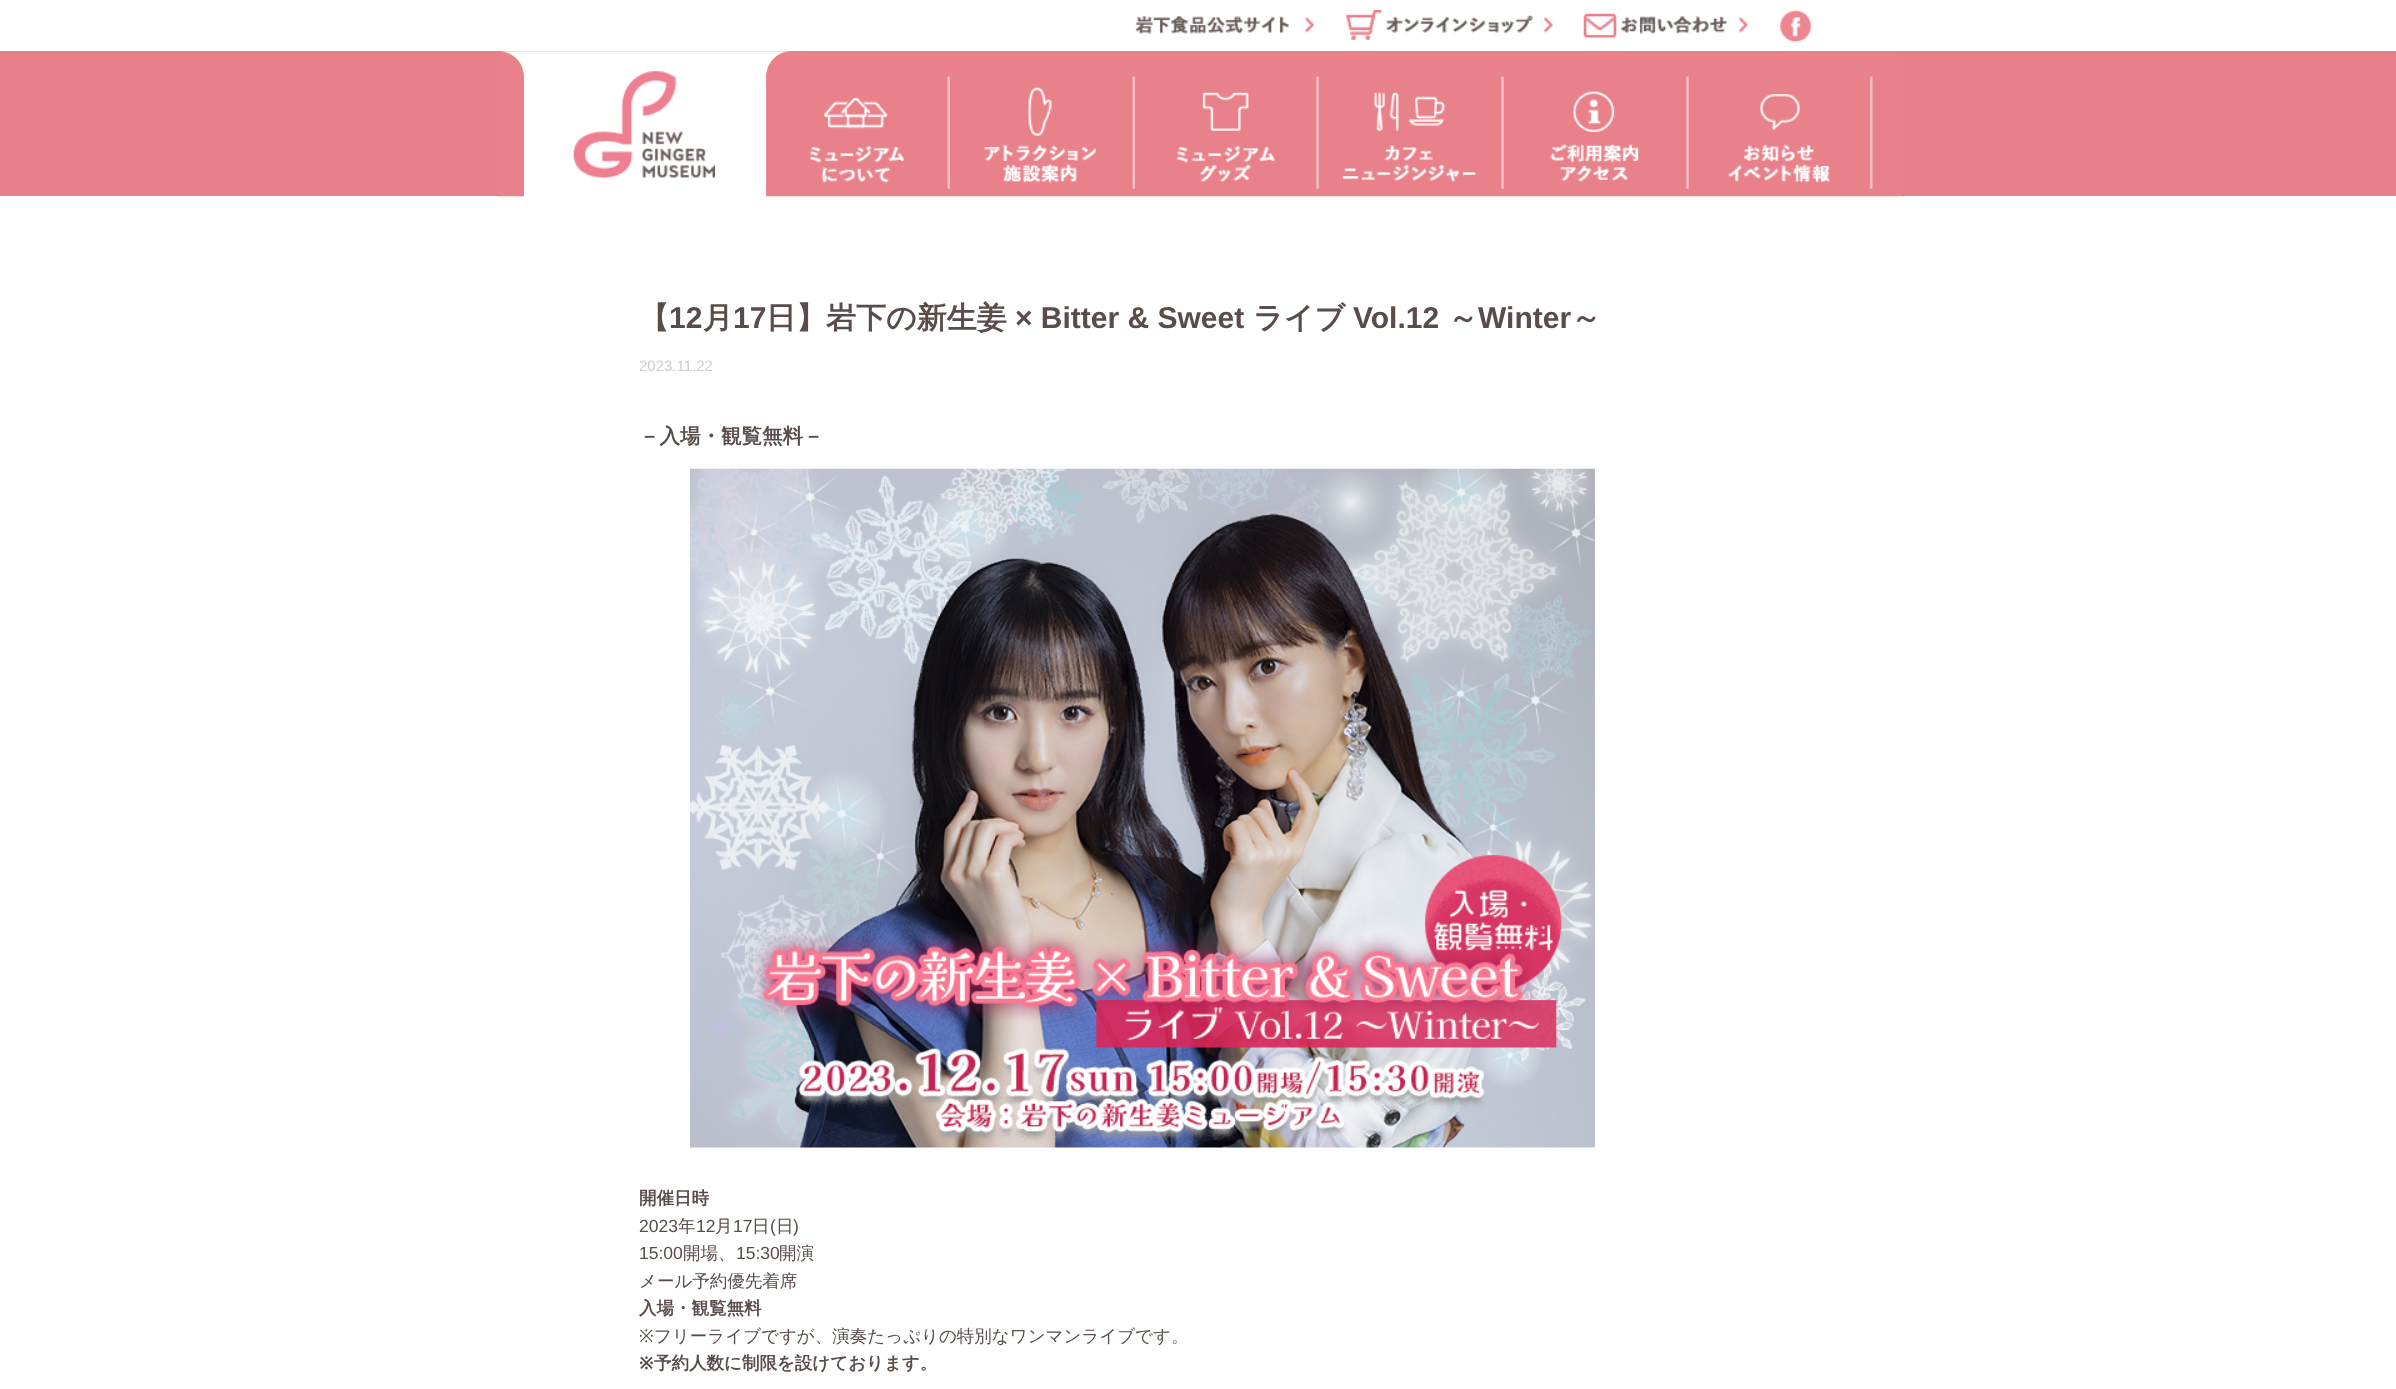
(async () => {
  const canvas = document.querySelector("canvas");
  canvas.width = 2396;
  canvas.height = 1389;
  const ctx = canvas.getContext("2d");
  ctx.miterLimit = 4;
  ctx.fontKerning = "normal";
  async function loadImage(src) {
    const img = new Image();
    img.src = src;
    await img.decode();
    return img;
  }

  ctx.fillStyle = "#ffffff";
  ctx.fillRect(0, 0, 2396, 1389);
  ctx.drawImage(await loadImage("img/1.png"), 1135, 16, 179, 18);
  ctx.drawImage(await loadImage("img/2.png"), 1346, 10, 207, 30);
  ctx.drawImage(await loadImage("img/3.png"), 1583, 13, 165, 25);
  ctx.drawImage(await loadImage("img/4.png"), 1780, 10, 32, 32);
  ctx.fillStyle = "#e88089";
  ctx.fillRect(0, 51, 2396, 145);
  ctx.drawImage(await loadImage("img/5.png"), 498, 51, 1401, 146);
  ctx.drawImage(await loadImage("img/6.png"), 573, 71, 142, 107);
  ctx.drawImage(await loadImage("img/7.png"), 809, 76, 141, 113);
  ctx.drawImage(await loadImage("img/8.png"), 984, 76, 151, 113);
  ctx.drawImage(await loadImage("img/9.png"), 1176, 76, 143, 113);
  ctx.drawImage(await loadImage("img/10.png"), 1342, 76, 162, 113);
  ctx.drawImage(await loadImage("img/11.png"), 1550, 76, 139, 113);
  ctx.drawImage(await loadImage("img/12.png"), 1727, 76, 146, 113);
  ctx.drawImage(await loadImage("img/13.png"), 690, 468, 905, 680);
  ctx.font = "bold 30px WenQuanYi Zen Hei";
  ctx.fillStyle = "#5a4c48";
  ctx.fillText("【", 639, 328);
  ctx.font = "bold 30px Liberation Sans";
  ctx.fillText("12", 669, 328);
  ctx.font = "bold 30px WenQuanYi Zen Hei";
  ctx.fillText("月", 703, 328);
  ctx.font = "bold 30px Liberation Sans";
  ctx.fillText("17", 733, 328);
  ctx.font = "bold 30px WenQuanYi Zen Hei";
  ctx.fillText("日】岩下の新生姜", 766, 328);
  ctx.font = "bold 30px Liberation Sans";
  ctx.fillText("× Bitter & Sweet", 1015, 328);
  ctx.font = "bold 30px WenQuanYi Zen Hei";
  ctx.fillText("ライブ", 1253, 328);
  ctx.font = "bold 30px Liberation Sans";
  ctx.fillText("Vol.12", 1353, 328);
  ctx.font = "bold 30px WenQuanYi Zen Hei";
  ctx.fillText("～", 1448, 328);
  ctx.font = "bold 30px Liberation Sans";
  ctx.fillText("Winter", 1478, 328);
  ctx.font = "bold 30px WenQuanYi Zen Hei";
  ctx.fillText("～", 1571, 328);
  ctx.font = "15px Liberation Sans";
  ctx.fillStyle = "#cccccc";
  ctx.fillText("2023.11.22", 639, 371);
  ctx.font = "bold 20.5px WenQuanYi Zen Hei";
  ctx.fillStyle = "#5a4c48";
  ctx.fillText("－入場・観覧無料－", 639, 443);
  ctx.font = "bold 17.5px WenQuanYi Zen Hei";
  ctx.fillText("開催日時", 639, 1204);
  ctx.font = "17.5px Liberation Sans";
  ctx.fillText("2023", 639, 1232);
  ctx.font = "500 17.5px WenQuanYi Zen Hei";
  ctx.fillText("年", 678, 1232);
  ctx.font = "17.5px Liberation Sans";
  ctx.fillText("12", 696, 1232);
  ctx.font = "500 17.5px WenQuanYi Zen Hei";
  ctx.fillText("月", 715, 1232);
  ctx.font = "17.5px Liberation Sans";
  ctx.fillText("17", 733, 1232);
  ctx.font = "500 17.5px WenQuanYi Zen Hei";
  ctx.fillText("日", 752, 1232);
  ctx.font = "17.5px Liberation Sans";
  ctx.fillText("(", 770, 1232);
  ctx.font = "500 17.5px WenQuanYi Zen Hei";
  ctx.fillText("日", 776, 1232);
  ctx.font = "17.5px Liberation Sans";
  ctx.fillText(")", 793, 1232);
  ctx.fillText("15:00", 639, 1259);
  ctx.font = "500 17.5px WenQuanYi Zen Hei";
  ctx.fillText("開場、", 683, 1259);
  ctx.font = "17.5px Liberation Sans";
  ctx.fillText("15:30", 736, 1259);
  ctx.font = "500 17.5px WenQuanYi Zen Hei";
  ctx.fillText("開演", 779, 1259);
  ctx.fillText("メール予約優先着席", 639, 1287);
  ctx.font = "bold 17.5px WenQuanYi Zen Hei";
  ctx.fillText("入場・観覧無料", 639, 1314);
  ctx.font = "17.5px Noto Sans";
  ctx.fillText("※", 639, 1342);
  ctx.font = "500 17.5px WenQuanYi Zen Hei";
  ctx.fillText("フリーライブですが、演奏たっぷりの特別なワンマンライブです。", 654, 1342);
  ctx.font = "bold 17.5px Noto Sans";
  ctx.fillText("※", 639, 1369);
  ctx.font = "bold 17.5px WenQuanYi Zen Hei";
  ctx.fillText("予約人数に制限を設けております。", 654, 1369);
})();
